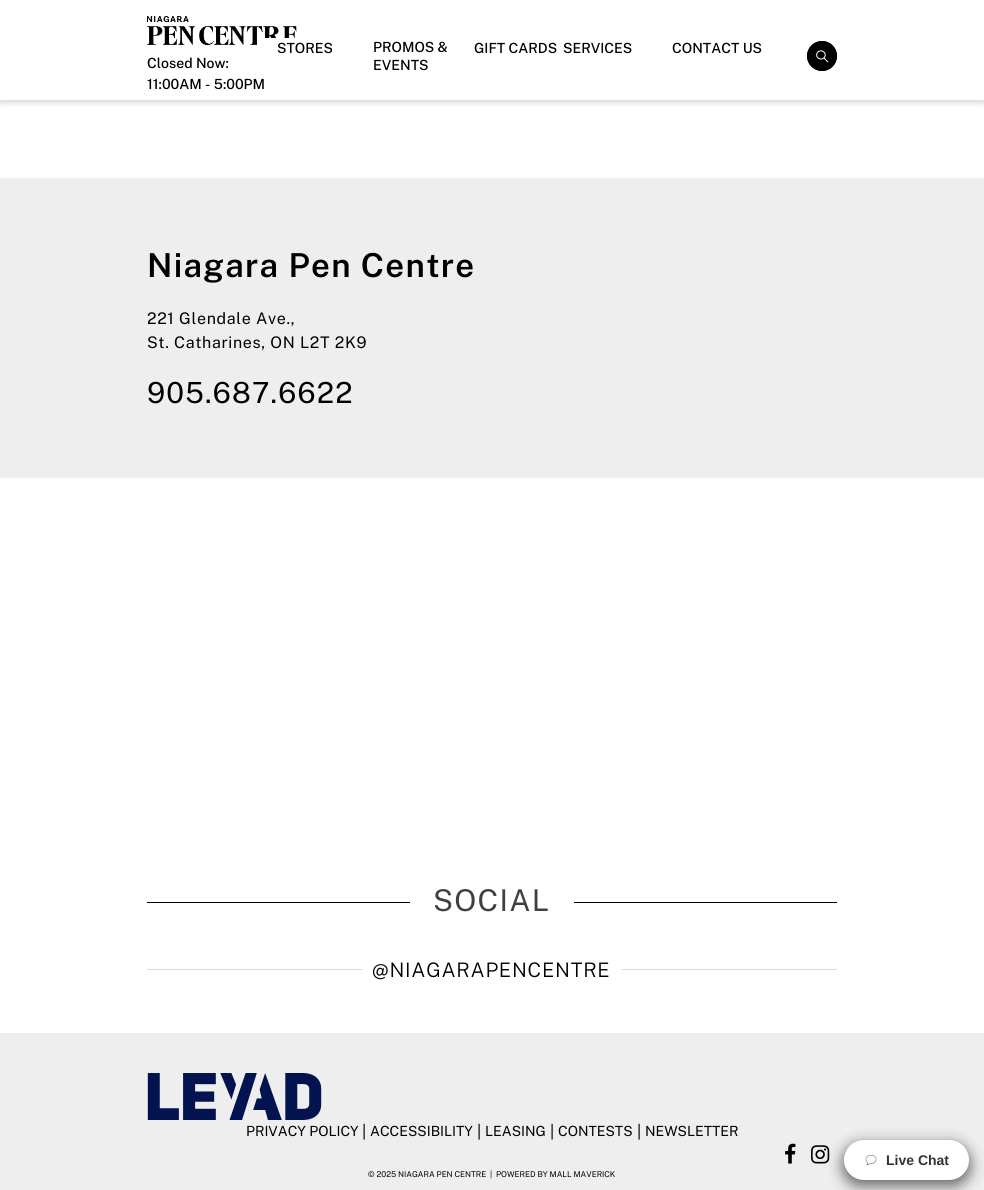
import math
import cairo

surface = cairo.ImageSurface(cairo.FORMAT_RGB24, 984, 1190)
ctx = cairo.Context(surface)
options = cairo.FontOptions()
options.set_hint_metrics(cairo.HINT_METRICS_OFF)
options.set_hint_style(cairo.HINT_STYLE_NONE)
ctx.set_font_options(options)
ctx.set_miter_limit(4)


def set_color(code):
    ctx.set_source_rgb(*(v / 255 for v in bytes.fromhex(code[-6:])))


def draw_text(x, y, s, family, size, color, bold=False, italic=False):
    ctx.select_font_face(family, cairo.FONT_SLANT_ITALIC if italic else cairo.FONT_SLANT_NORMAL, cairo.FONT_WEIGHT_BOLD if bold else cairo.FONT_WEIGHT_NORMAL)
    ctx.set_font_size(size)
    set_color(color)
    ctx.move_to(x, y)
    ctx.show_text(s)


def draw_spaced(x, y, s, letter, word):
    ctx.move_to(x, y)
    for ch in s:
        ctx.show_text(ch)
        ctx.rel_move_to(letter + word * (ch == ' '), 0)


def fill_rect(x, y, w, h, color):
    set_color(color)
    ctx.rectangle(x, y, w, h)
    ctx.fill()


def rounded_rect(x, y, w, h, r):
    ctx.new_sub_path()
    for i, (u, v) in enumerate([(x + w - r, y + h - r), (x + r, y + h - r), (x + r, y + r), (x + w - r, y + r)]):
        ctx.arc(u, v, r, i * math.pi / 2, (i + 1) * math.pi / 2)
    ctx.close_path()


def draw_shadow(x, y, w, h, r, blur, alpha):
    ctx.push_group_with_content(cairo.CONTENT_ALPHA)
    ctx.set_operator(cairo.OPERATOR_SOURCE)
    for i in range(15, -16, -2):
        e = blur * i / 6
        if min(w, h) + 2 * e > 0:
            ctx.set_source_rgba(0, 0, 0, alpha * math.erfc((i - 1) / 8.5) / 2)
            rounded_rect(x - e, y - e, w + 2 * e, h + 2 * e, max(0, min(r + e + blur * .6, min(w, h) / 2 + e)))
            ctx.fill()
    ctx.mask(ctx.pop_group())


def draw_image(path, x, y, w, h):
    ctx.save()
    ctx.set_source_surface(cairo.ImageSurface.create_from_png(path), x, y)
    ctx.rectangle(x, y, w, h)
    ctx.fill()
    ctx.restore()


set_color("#ffffff")
ctx.paint()
set_color("#000000")
draw_shadow(0, 3, 984, 100, 0, 3, 0.16)
fill_rect(0, 0, 984, 100, "#ffffff")
draw_image("assets/img1.png", 147, 16, 150, 30)
draw_text(147, 68, "Closed Now:", "Public Sans Medium", 14, "#000000")
draw_text(147, 89, "11:00AM - 5:00PM", "Public Sans Medium", 14, "#000000")
fill_rect(257, 38, 40, 8, "#ffffff")
draw_text(277, 53, "STORES", "Public Sans Medium", 14, "#000000")
draw_text(373, 52, "PROMOS &", "Public Sans Medium", 14, "#000000")
draw_text(373, 70, "EVENTS", "Public Sans Medium", 14, "#000000")
draw_text(474, 53, "GIFT CARDS", "Public Sans Medium", 14, "#000000")
draw_text(563, 53, "SERVICES", "Public Sans Medium", 14, "#000000")
draw_text(672, 53, "CONTACT US", "Public Sans Medium", 14, "#000000")
draw_image("assets/img2.png", 807, 41, 30, 30)
fill_rect(0, 178, 984, 300, "#eeeeee")
ctx.select_font_face("Public Sans SemiBold")
ctx.set_font_size(33)
set_color("#000000")
draw_spaced(147, 277, "Niagara Pen Centre", 1.3, 0)
ctx.select_font_face("Public Sans")
ctx.set_font_size(16)
draw_spaced(147, 324, "221 Glendale Ave.,", 0.65, 0)
draw_spaced(147, 348, "St. Catharines, ON L2T 2K9", 0.65, 0)
ctx.set_font_size(29)
draw_spaced(147, 403, "905.687.6622", 1.2, 0)
fill_rect(147, 902, 263, 1, "#000000")
ctx.set_font_size(30)
set_color("#404040")
draw_spaced(433, 911, "SOCIAL", 1.25, 0)
fill_rect(574, 902, 263, 1, "#000000")
fill_rect(147, 969, 215, 1, "#dbdbdb")
ctx.select_font_face("Public Sans Light")
ctx.set_font_size(20)
set_color("#000000")
draw_spaced(372, 977, "@NIAGARAPENCENTRE", 0.75, 0)
fill_rect(622, 969, 215, 1, "#dbdbdb")
fill_rect(0, 1033, 984, 157, "#eeeeee")
draw_image("assets/img3.png", 147, 1073, 175, 47)
draw_text(246, 1136, "PRIVACY POLICY", "Public Sans", 14, "#000000")
draw_text(362, 1137, "|", "Public Sans", 16, "#000000")
draw_text(370, 1136, "ACCESSIBILITY", "Public Sans", 14, "#000000")
draw_text(477, 1137, "|", "Public Sans", 16, "#000000")
draw_text(485, 1136, "LEASING", "Public Sans", 14, "#000000")
draw_text(550, 1137, "|", "Public Sans", 16, "#000000")
draw_text(558, 1136, "CONTESTS", "Public Sans", 14, "#000000")
draw_text(637, 1137, "|", "Public Sans", 16, "#000000")
draw_text(645, 1136, "NEWSLETTER", "Public Sans", 14, "#000000")
draw_image("assets/img4.png", 785, 1143, 11, 21)
draw_image("assets/img5.png", 811, 1145, 19, 19)
draw_text(368, 1177, "© 2025 NIAGARA PEN CENTRE", "Public Sans", 8, "#000000")
draw_text(490, 1177, "|", "Public Sans", 8, "#000000")
draw_text(496, 1177, "POWERED BY MALL MAVERICK", "Public Sans", 8, "#000000")
set_color("#000000")
draw_shadow(844, 1145, 125, 40, 20, 7.5, 0.35)
draw_shadow(844, 1145, 125, 40, 20, 7.5, 0.35)
set_color("#ffffff")
rounded_rect(844, 1140, 125, 40, 20)
ctx.fill()
draw_image("assets/img6.png", 865, 1154, 12, 12)
draw_text(886, 1165, "Live Chat", "Liberation Sans", 14, "#333333", bold=True)
surface.write_to_png("output.png")
